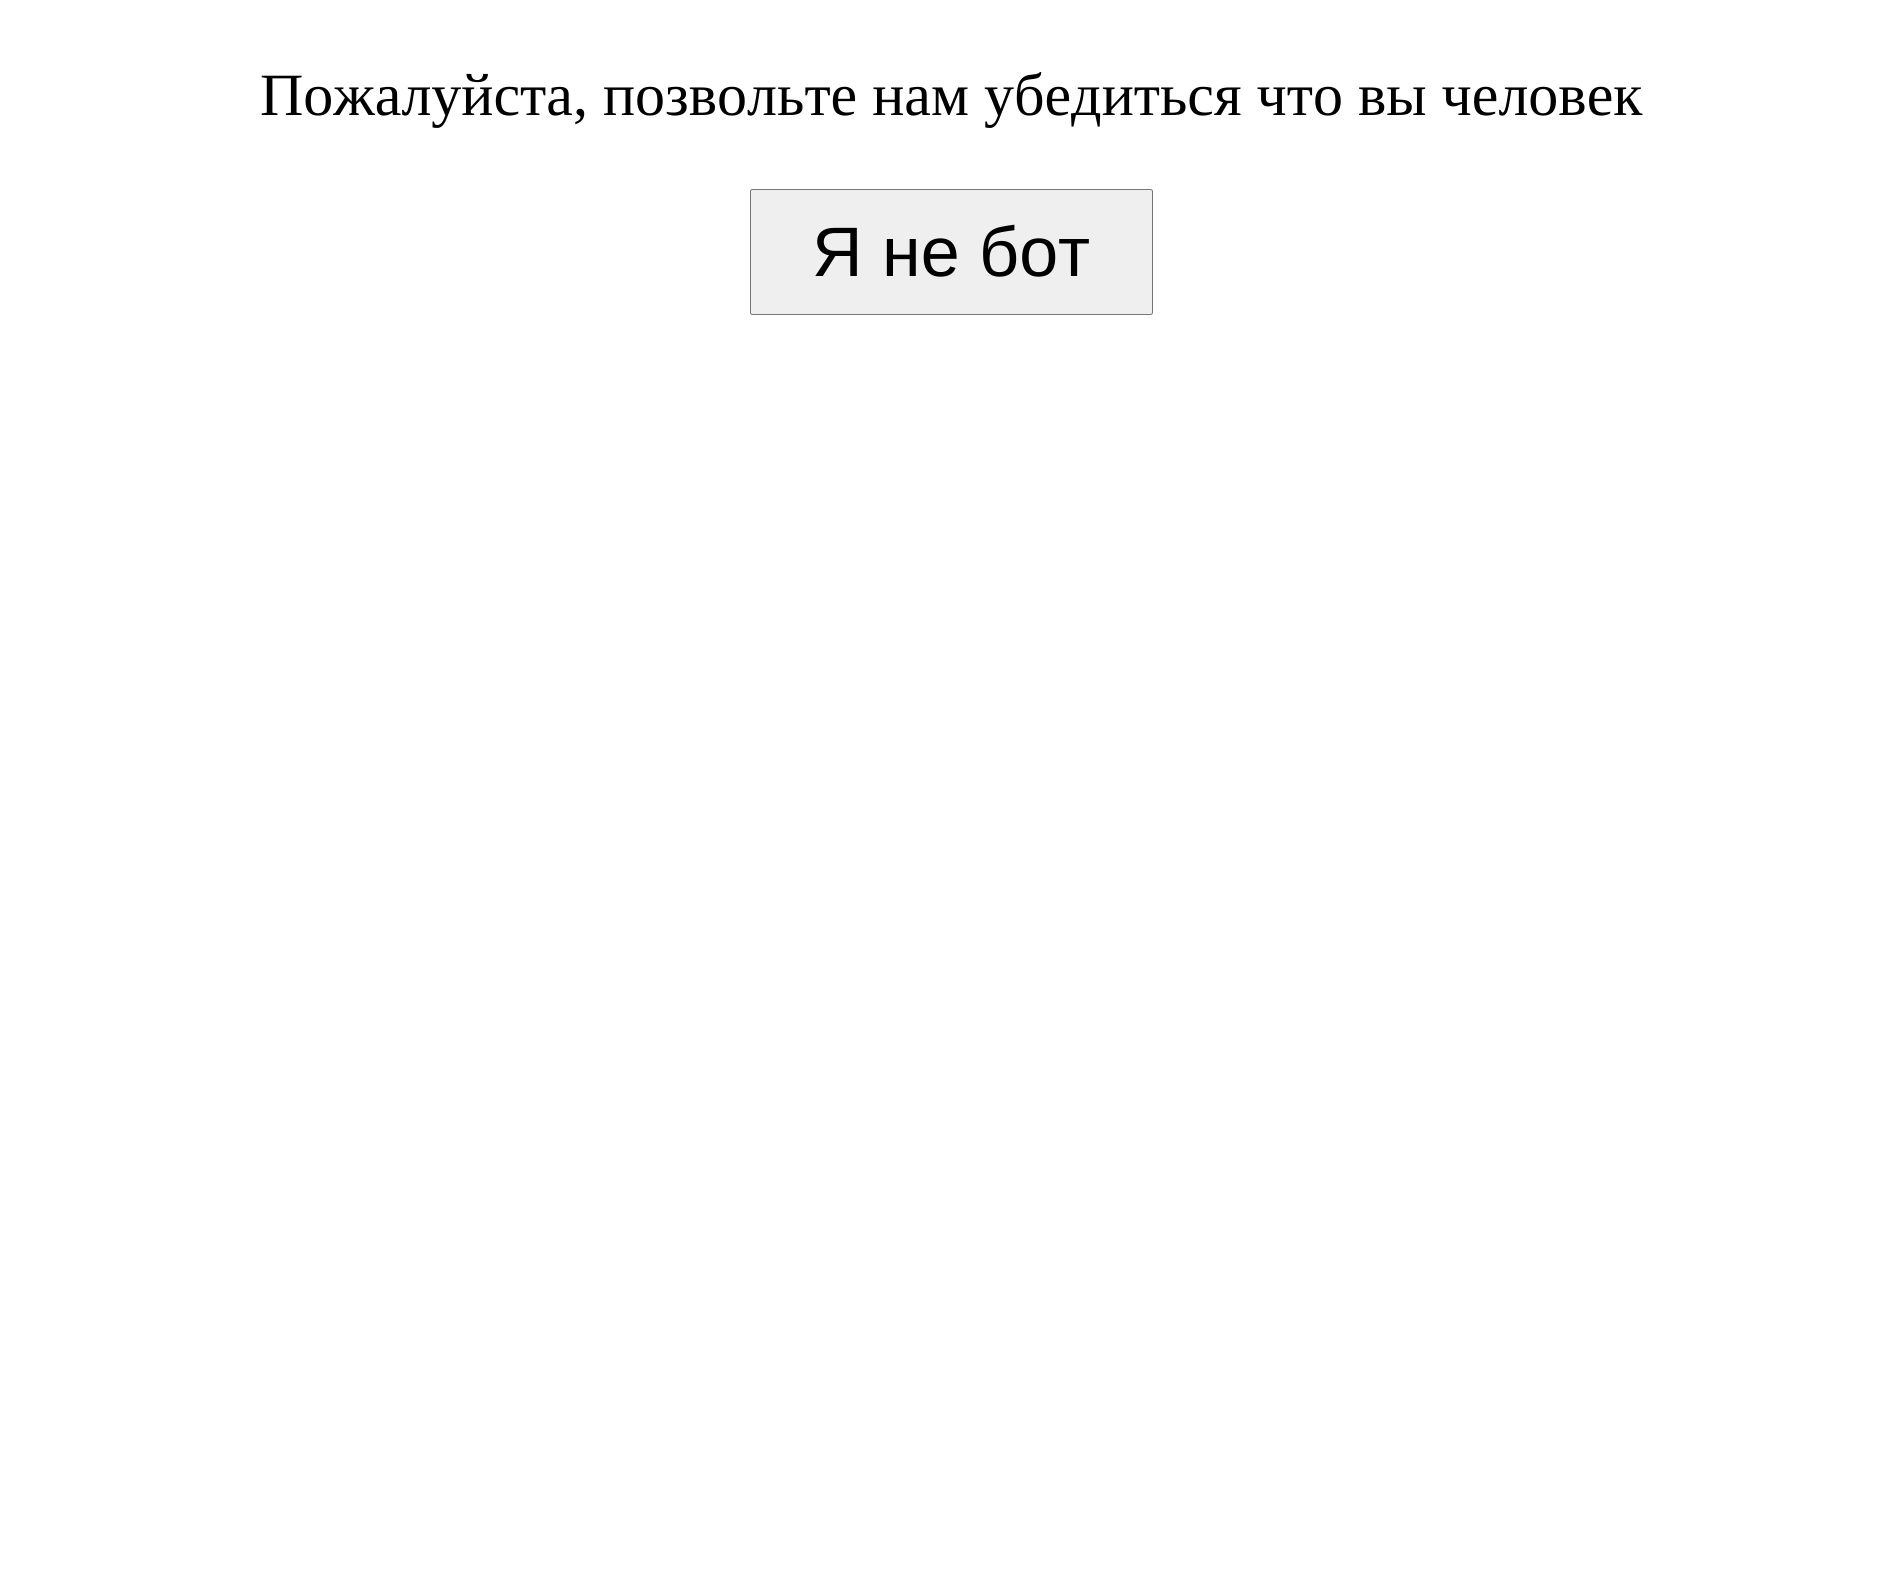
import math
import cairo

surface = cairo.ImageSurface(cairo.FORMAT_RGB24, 1902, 1572)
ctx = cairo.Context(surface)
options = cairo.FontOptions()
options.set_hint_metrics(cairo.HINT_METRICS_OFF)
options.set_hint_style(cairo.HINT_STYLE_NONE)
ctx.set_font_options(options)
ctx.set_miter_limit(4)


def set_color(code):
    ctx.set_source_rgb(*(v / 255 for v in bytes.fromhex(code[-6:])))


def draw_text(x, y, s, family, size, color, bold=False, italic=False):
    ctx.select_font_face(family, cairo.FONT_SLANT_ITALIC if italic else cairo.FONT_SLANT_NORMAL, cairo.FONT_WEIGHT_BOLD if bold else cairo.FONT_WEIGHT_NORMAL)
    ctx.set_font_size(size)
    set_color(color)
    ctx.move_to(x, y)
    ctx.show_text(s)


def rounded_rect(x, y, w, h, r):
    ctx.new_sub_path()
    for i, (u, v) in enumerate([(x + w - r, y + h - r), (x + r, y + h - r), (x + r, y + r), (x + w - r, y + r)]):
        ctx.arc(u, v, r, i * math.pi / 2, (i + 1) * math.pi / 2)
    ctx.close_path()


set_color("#ffffff")
ctx.paint()
draw_text(260, 115, "Пожалуйста, позвольте нам убедиться что вы человек", "Liberation Serif", 60, "#000000")
set_color("#efefef")
rounded_rect(750.5, 189.5, 402, 125, 2)
ctx.fill_preserve()
set_color("#767676")
ctx.set_line_width(1)
ctx.stroke()
draw_text(812, 276, "Я не бот", "Liberation Sans", 70, "#000000")
surface.write_to_png("output.png")
